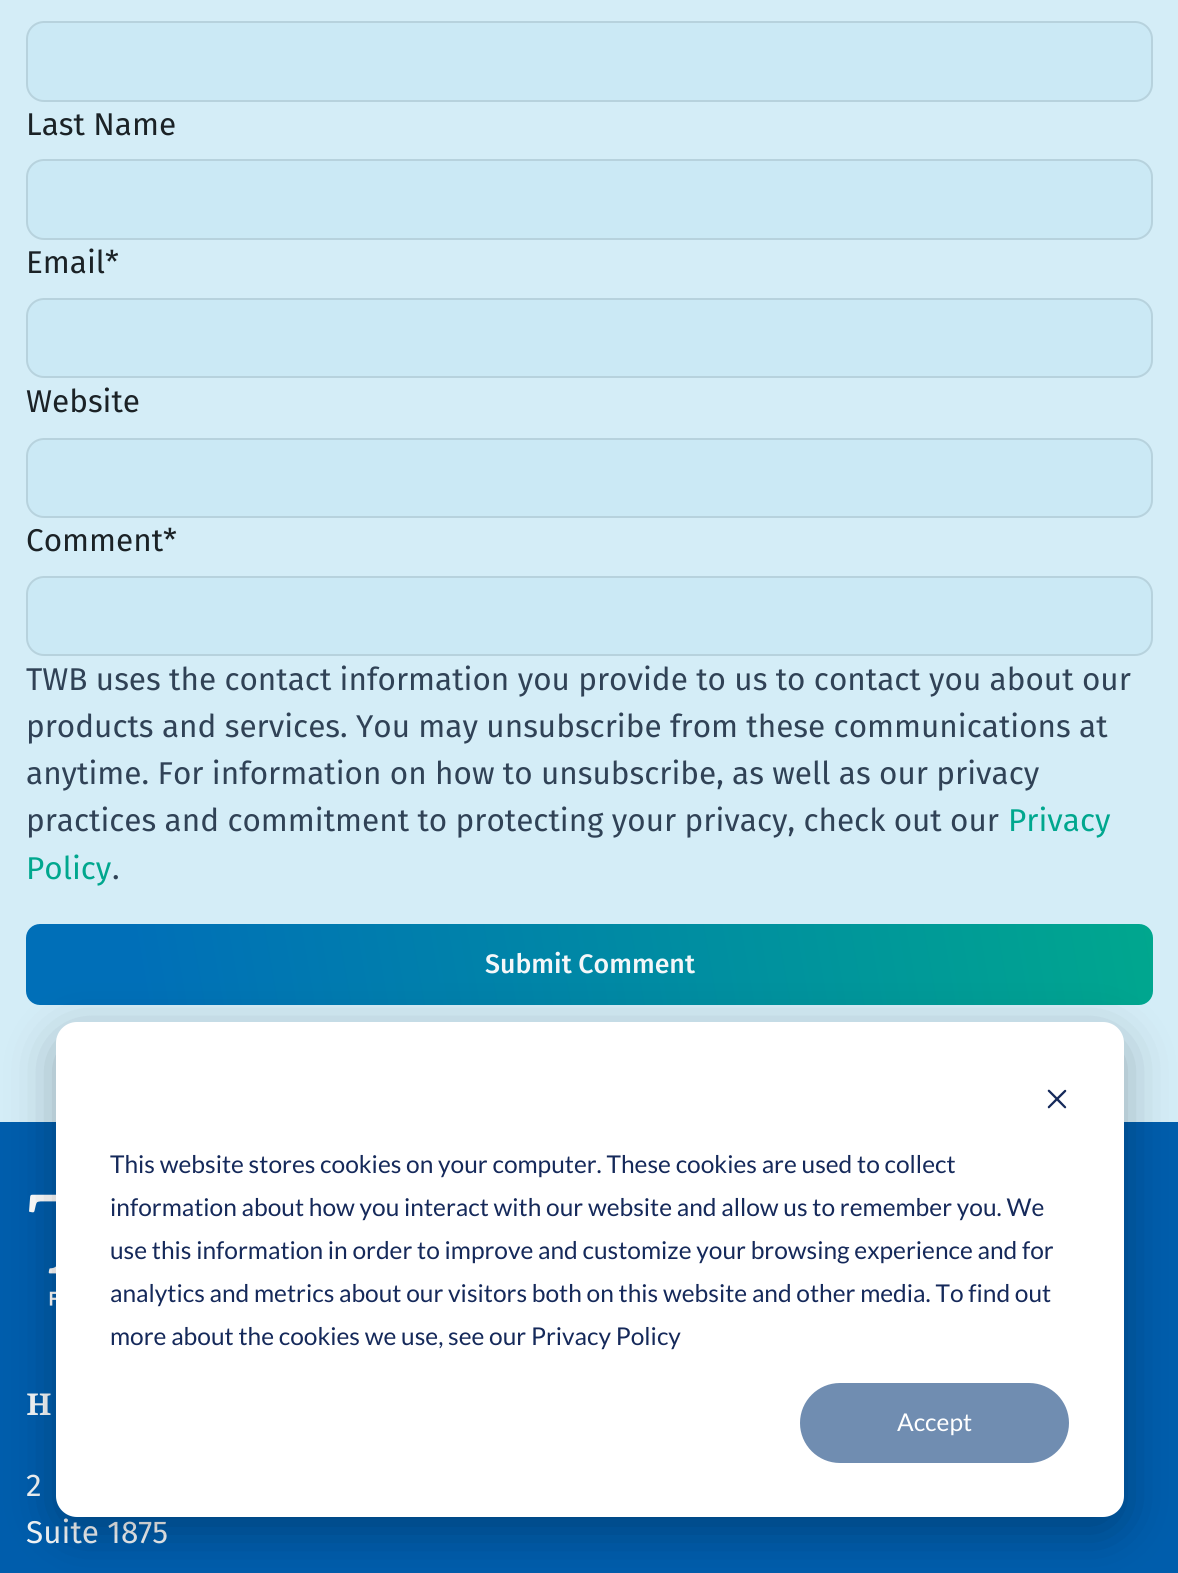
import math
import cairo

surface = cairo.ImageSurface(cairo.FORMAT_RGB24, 1178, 1573)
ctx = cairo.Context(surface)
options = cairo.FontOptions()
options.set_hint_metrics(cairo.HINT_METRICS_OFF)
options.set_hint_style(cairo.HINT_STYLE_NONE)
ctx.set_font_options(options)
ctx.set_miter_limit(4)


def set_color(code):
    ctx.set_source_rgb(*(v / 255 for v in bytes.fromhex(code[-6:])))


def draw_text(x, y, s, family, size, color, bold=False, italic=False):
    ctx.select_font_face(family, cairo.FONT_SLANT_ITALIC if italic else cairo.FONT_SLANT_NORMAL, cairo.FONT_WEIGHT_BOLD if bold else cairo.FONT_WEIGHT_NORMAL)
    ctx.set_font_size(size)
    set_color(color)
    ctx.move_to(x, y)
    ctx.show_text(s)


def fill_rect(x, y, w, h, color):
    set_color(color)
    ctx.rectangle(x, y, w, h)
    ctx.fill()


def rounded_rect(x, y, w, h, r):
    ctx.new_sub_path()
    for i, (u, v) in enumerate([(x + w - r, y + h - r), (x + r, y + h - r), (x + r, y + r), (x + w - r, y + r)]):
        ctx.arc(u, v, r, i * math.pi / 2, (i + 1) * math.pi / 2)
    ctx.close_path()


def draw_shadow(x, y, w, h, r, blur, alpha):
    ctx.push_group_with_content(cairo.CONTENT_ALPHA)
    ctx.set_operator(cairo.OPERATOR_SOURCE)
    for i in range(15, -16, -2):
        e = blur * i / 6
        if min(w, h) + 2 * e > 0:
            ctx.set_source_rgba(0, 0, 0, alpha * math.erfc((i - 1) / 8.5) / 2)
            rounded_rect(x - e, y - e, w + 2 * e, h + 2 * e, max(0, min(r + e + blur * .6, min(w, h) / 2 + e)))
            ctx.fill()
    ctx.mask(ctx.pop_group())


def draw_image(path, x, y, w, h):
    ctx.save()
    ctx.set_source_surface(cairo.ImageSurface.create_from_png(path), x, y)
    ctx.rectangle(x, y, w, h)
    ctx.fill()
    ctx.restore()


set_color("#d4edf7")
ctx.paint()
set_color("#cbe9f5")
rounded_rect(26, 21, 1127, 81, 18)
ctx.fill()
rounded_rect(27, 22, 1125, 79, 17)
ctx.set_source_rgba(0, 0, 0, 0.1)
ctx.stroke()
draw_text(26, 135, "Last Name", "Fira Sans", 31.5, "#1b2226")
set_color("#cbe9f5")
rounded_rect(26, 159, 1127, 81, 18)
ctx.fill()
rounded_rect(27, 160, 1125, 79, 17)
ctx.set_source_rgba(0, 0, 0, 0.1)
ctx.stroke()
draw_text(26, 273, "Email*", "Fira Sans", 31.5, "#1b2226")
set_color("#cbe9f5")
rounded_rect(26, 298, 1127, 80, 18)
ctx.fill()
rounded_rect(27, 299, 1125, 78, 17)
ctx.set_source_rgba(0, 0, 0, 0.1)
ctx.stroke()
draw_text(26, 412, "Website", "Fira Sans", 31.5, "#1b2226")
set_color("#cbe9f5")
rounded_rect(26, 438, 1127, 80, 18)
ctx.fill()
rounded_rect(27, 439, 1125, 78, 17)
ctx.set_source_rgba(0, 0, 0, 0.1)
ctx.stroke()
draw_text(26, 551, "Comment*", "Fira Sans", 31.5, "#1b2226")
set_color("#cbe9f5")
rounded_rect(26, 576, 1127, 80, 18)
ctx.fill()
rounded_rect(27, 577, 1125, 78, 17)
ctx.set_source_rgba(0, 0, 0, 0.1)
ctx.stroke()
draw_text(26, 690, "TWB uses the contact information you provide to us to contact you about our", "Fira Sans", 31.5, "#304256")
draw_text(26, 737, "products and services. You may unsubscribe from these communications at", "Fira Sans", 31.5, "#304256")
draw_text(26, 784, "anytime. For information on how to unsubscribe, as well as our privacy", "Fira Sans", 31.5, "#304256")
draw_text(26, 831, "practices and commitment to protecting your privacy, check out our", "Fira Sans", 31.5, "#304256")
draw_text(1008, 831, "Privacy", "Fira Sans", 31.5, "#00a78e")
draw_text(26, 879, "Policy", "Fira Sans", 31.5, "#00a78e")
draw_text(112, 879, ".", "Fira Sans", 31.5, "#304256")
gradient = cairo.LinearGradient(36, 1062, 1143, 867)
gradient.add_color_stop_rgba(0.1, 0, 0.435, 0.722, 1)
gradient.add_color_stop_rgba(1, 0, 0.655, 0.557, 1)
ctx.set_source(gradient)
rounded_rect(26, 924, 1127, 81, 14)
ctx.fill()
draw_text(485, 973, "Submit Comment", "Fira Sans Medium", 26.75, "#f4f7f9")
fill_rect(0, 1122, 1178, 451, "#005dac")
draw_image("assets/img1.png", 29, 1194, 27, 112)
draw_text(26, 1415, "H", "Manuale", 35, "#f4f7f9", bold=True)
draw_text(26, 1496, "2", "Fira Sans", 31.5, "#f4f7f9")
draw_text(26, 1543, "Suite 1875", "Fira Sans", 31.5, "#f4f7f9")
set_color("#000000")
draw_shadow(56, 1036, 1068, 495, 21, 24.5, 0.28)
set_color("#ffffff")
rounded_rect(56, 1022, 1068, 495, 21)
ctx.fill()
draw_image("assets/img2.png", 1047, 1089, 20, 20)
draw_text(110, 1173, "This website stores cookies on your computer. These cookies are used to collect", "Lato", 24.5, "#15295a")
draw_text(110, 1216, "information about how you interact with our website and allow us to remember you. We", "Lato", 24.5, "#15295a")
draw_text(110, 1259, "use this information in order to improve and customize your browsing experience and for", "Lato", 24.5, "#15295a")
draw_text(110, 1302, "analytics and metrics about our visitors both on this website and other media. To find out", "Lato", 24.5, "#15295a")
draw_text(110, 1345, "more about the cookies we use, see our Privacy Policy", "Lato", 24.5, "#15295a")
set_color("#708db1")
rounded_rect(801, 1384, 267, 78, 39)
ctx.fill_preserve()
ctx.stroke()
draw_text(897, 1431, "Accept", "Lato", 24.5, "#ffffff")
surface.write_to_png("output.png")
